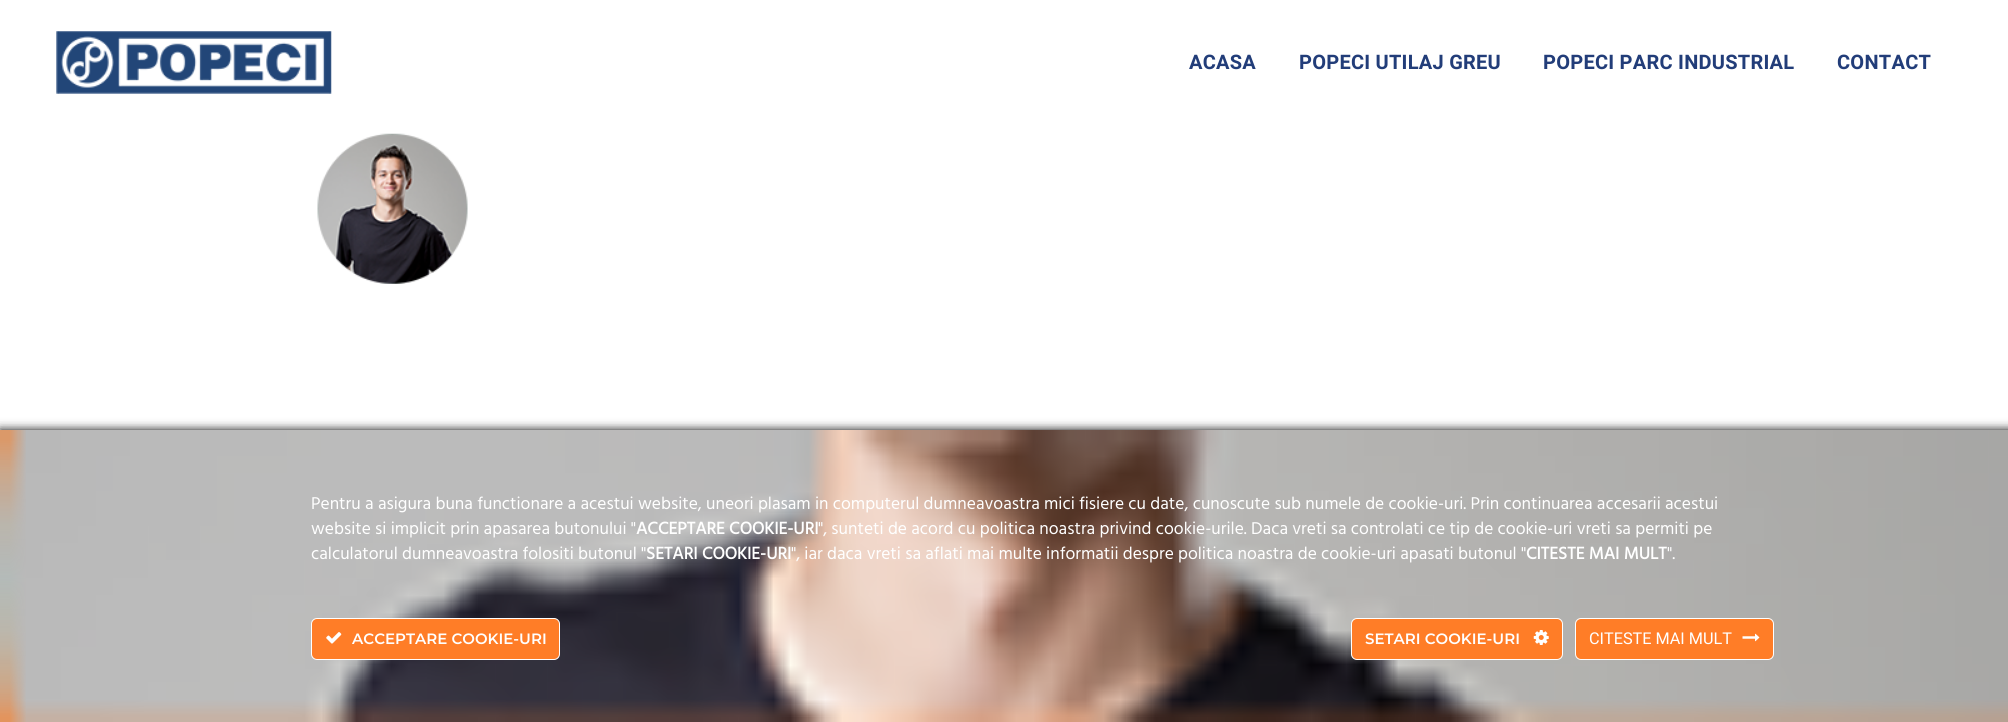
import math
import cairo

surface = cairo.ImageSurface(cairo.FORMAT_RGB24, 2008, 722)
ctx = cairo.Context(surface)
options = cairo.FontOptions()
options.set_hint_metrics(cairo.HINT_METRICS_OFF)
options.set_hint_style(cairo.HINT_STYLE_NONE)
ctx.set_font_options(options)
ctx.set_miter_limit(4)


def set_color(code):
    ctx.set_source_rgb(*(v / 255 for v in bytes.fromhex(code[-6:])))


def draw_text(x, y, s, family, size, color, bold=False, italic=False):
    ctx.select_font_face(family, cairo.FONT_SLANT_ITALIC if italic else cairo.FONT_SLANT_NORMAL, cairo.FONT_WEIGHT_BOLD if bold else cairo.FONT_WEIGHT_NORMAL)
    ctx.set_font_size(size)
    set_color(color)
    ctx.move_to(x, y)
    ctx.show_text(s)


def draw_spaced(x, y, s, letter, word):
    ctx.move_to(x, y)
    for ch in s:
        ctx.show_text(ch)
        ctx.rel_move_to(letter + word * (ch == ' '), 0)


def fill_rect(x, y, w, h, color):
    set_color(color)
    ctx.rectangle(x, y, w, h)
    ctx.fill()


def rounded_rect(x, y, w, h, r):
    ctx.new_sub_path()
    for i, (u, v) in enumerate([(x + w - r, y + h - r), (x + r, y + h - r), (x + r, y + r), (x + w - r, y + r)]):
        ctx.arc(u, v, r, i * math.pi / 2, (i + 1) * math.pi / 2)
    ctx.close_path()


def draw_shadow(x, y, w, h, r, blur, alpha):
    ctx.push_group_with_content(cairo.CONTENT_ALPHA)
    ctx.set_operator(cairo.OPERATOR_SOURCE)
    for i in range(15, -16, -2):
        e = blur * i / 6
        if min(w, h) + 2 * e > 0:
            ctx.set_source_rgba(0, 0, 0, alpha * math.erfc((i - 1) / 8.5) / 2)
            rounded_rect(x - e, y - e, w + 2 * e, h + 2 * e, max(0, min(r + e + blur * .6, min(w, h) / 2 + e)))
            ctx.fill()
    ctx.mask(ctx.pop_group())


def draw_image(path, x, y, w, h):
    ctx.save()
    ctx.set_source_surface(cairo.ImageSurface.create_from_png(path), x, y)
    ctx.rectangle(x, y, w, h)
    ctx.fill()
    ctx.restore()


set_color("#ffffff")
ctx.paint()
draw_image("assets/img1.png", 56, 31, 276, 63)
ctx.select_font_face("Heebo", cairo.FONT_SLANT_NORMAL, cairo.FONT_WEIGHT_BOLD)
ctx.set_font_size(20)
set_color("#223d79")
draw_spaced(1189, 69, "ACASA", 0.25, 0)
draw_spaced(1299, 69, "POPECI UTILAJ GREU", 0.25, 0)
draw_spaced(1543, 69, "POPECI PARC INDUSTRIAL", 0.25, 0)
draw_spaced(1837, 69, "CONTACT", 0.25, 0)
draw_image("assets/img2.png", 317, 133, 151, 151)
set_color("#000000")
draw_shadow(0, 430, 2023, 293, 0, 5, 1)
fill_rect(0, 430, 2008, 292, "#ff7d27")
draw_image("assets/img3.png", 0, 430, 2008, 292)
draw_text(311, 509, "Pentru a asigura buna functionare a acestui website, uneori plasam in computerul dumneavoastra mici fisiere cu date, cunoscute sub numele de cookie-uri. Prin continuarea accesarii acestui", "Hind", 17.5, "#ffffff")
draw_text(311, 534, "website si implicit prin apasarea butonului \"", "Hind", 17.5, "#ffffff")
draw_text(636, 534, "ACCEPTARE COOKIE-URI", "Hind", 17.5, "#ffffff", bold=True)
draw_text(818, 534, "\", sunteti de acord cu politica noastra privind cookie-urile. Daca vreti sa controlati ce tip de cookie-uri vreti sa permiti pe", "Hind", 17.5, "#ffffff")
draw_text(311, 559, "calculatorul dumneavoastra folositi butonul \"", "Hind", 17.5, "#ffffff")
draw_text(646, 559, "SETARI COOKIE-URI", "Hind", 17.5, "#ffffff", bold=True)
draw_text(791, 559, "\", iar daca vreti sa aflati mai multe informatii despre politica noastra de cookie-uri apasati butonul \"", "Hind", 17.5, "#ffffff")
draw_text(1526, 559, "CITESTE MAI MULT", "Hind", 17.5, "#ffffff", bold=True)
draw_text(1667, 559, "\".", "Hind", 17.5, "#ffffff")
set_color("#ff7d27")
rounded_rect(311.5, 618.5, 248, 41, 5.5)
ctx.fill_preserve()
set_color("#ffffff")
ctx.set_line_width(1)
ctx.stroke()
draw_image("assets/img4.png", 326, 632, 16, 12)
draw_text(352, 644, "ACCEPTARE COOKIE-URI", "Montserrat SemiBold", 15, "#ffffff")
set_color("#ff7d27")
rounded_rect(1351.5, 618.5, 211, 41, 5.5)
ctx.fill_preserve()
set_color("#ffffff")
ctx.stroke()
draw_text(1365, 644, "SETARI COOKIE-URI", "Montserrat SemiBold", 15, "#ffffff")
draw_image("assets/img5.png", 1533, 630, 16, 15)
set_color("#ff7d27")
rounded_rect(1575.5, 618.5, 198, 41, 5.5)
ctx.fill_preserve()
set_color("#ffffff")
ctx.stroke()
draw_text(1589, 644, "CITESTE MAI MULT", "Heebo", 16.25, "#ffffff")
draw_image("assets/img6.png", 1742, 633, 18, 9)
surface.write_to_png("output.png")
